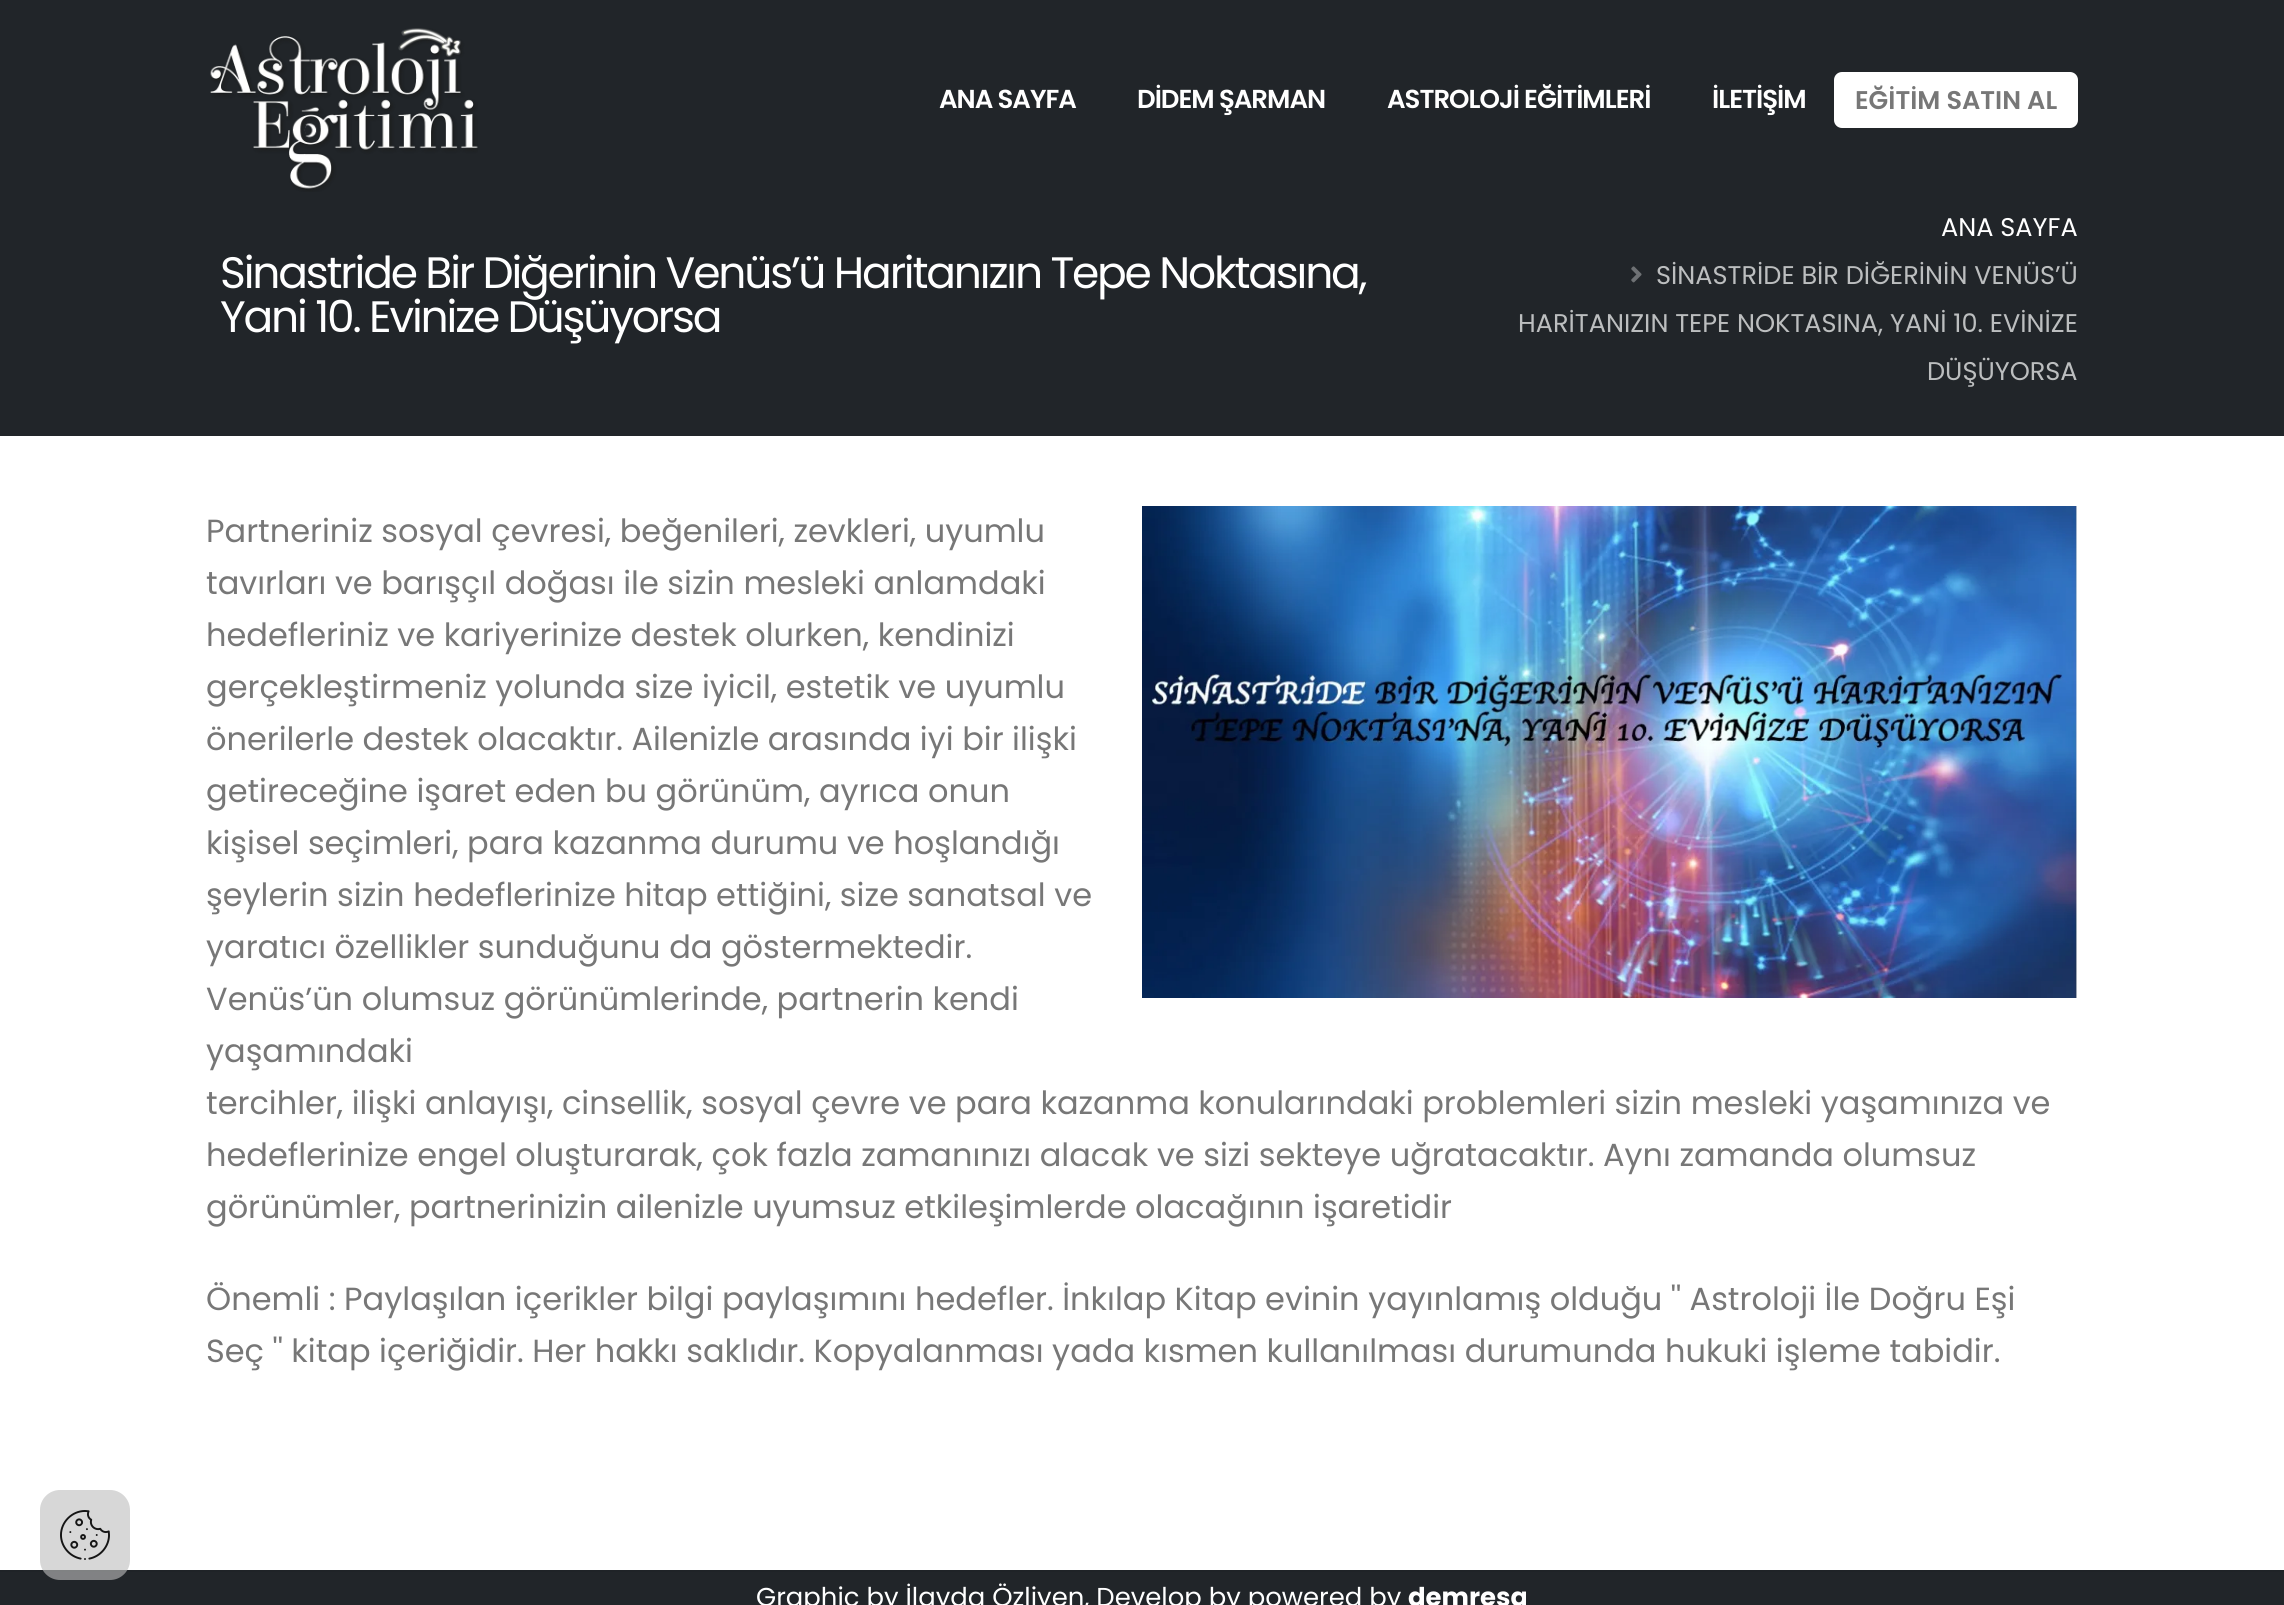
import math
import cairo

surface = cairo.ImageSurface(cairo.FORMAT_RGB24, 2284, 1605)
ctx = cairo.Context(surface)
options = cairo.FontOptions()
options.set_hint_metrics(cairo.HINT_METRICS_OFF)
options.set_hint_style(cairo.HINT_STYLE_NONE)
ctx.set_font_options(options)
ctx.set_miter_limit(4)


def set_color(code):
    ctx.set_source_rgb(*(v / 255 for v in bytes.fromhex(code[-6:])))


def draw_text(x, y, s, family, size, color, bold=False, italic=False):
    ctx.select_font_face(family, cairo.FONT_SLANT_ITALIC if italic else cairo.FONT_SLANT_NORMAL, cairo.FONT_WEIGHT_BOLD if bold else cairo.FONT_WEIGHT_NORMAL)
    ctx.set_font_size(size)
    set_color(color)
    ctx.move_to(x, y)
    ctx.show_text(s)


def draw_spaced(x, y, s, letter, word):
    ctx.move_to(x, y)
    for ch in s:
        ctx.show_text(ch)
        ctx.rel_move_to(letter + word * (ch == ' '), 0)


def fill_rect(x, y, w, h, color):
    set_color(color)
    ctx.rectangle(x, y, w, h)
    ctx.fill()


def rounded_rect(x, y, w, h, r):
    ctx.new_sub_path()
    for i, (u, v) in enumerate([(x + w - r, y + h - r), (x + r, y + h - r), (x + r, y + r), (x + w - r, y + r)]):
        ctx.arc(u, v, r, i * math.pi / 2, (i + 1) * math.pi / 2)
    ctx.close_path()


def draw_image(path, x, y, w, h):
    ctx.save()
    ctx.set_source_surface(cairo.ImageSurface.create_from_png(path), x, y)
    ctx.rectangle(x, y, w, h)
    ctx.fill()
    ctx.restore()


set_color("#ffffff")
ctx.paint()
fill_rect(0, 1572, 2284, 33, "#212529")
fill_rect(0, 1570, 2284, 2, "#1f2327")
ctx.set_source_rgba(0.745, 0.745, 0.745, 0.61)
rounded_rect(40, 1490, 90, 90, 20)
ctx.fill()
draw_image("assets/img1.png", 60, 1510, 50, 50)
fill_rect(0, 0, 2284, 436, "#212529")
draw_image("assets/img2.png", 210, 28, 268, 164)
ctx.select_font_face("Poppins SemiBold")
ctx.set_font_size(26)
set_color("#ffffff")
draw_spaced(939, 108, "ANA SAYFA", -1, 0)
draw_spaced(1137, 108, "DİDEM ŞARMAN", -1, 0)
draw_spaced(1387, 108, "ASTROLOJİ EĞİTİMLERİ", -1, 0)
draw_spaced(1712, 108, "İLETİŞİM", -1, 0)
rounded_rect(1834, 72, 244, 56, 8)
ctx.fill()
draw_text(1855, 109, "EĞİTİM SATIN AL", "Poppins SemiBold", 25.6, "#777777")
ctx.select_font_face("Poppins")
ctx.set_font_size(44)
set_color("#ffffff")
draw_spaced(220, 288, "Sinastride Bir Diğerinin Venüs’ü Haritanızın Tepe Noktasına,", -2.2, 0)
draw_spaced(220, 332, "Yani 10. Evinize Düşüyorsa", -2.2, 0)
draw_text(1941, 236, "ANA SAYFA", "Poppins", 25.6, "#ffffff")
draw_image("assets/img3.png", 1631, 266, 11, 17)
draw_text(1656, 284, "SİNASTRİDE BİR DİĞERİNİN VENÜS’Ü", "Poppins", 25.6, "#bcbebf")
draw_text(1518, 332, "HARİTANIZIN TEPE NOKTASINA, YANİ 10. EVİNİZE", "Poppins", 25.6, "#bcbebf")
draw_text(1927, 380, "DÜŞÜYORSA", "Poppins", 25.6, "#bcbebf")
draw_image("assets/img4.png", 1142, 506, 935, 492)
draw_text(206, 542, "Partneriniz sosyal çevresi, beğenileri, zevkleri, uyumlu", "Poppins", 32, "#777777")
draw_text(206, 594, "tavırları ve barışçıl doğası ile sizin mesleki anlamdaki", "Poppins", 32, "#777777")
draw_text(206, 646, "hedefleriniz ve kariyerinize destek olurken, kendinizi", "Poppins", 32, "#777777")
draw_text(206, 698, "gerçekleştirmeniz yolunda size iyicil, estetik ve uyumlu", "Poppins", 32, "#777777")
draw_text(206, 750, "önerilerle destek olacaktır. Ailenizle arasında iyi bir ilişki", "Poppins", 32, "#777777")
draw_text(206, 802, "getireceğine işaret eden bu görünüm, ayrıca onun", "Poppins", 32, "#777777")
draw_text(206, 854, "kişisel seçimleri, para kazanma durumu ve hoşlandığı", "Poppins", 32, "#777777")
draw_text(206, 906, "şeylerin sizin hedeflerinize hitap ettiğini, size sanatsal ve", "Poppins", 32, "#777777")
draw_text(206, 958, "yaratıcı özellikler sunduğunu da göstermektedir.", "Poppins", 32, "#777777")
draw_text(206, 1010, "Venüs’ün olumsuz görünümlerinde, partnerin kendi", "Poppins", 32, "#777777")
draw_text(206, 1062, "yaşamındaki", "Poppins", 32, "#777777")
draw_text(206, 1114, "tercihler, ilişki anlayışı, cinsellik, sosyal çevre ve para kazanma konularındaki problemleri sizin mesleki yaşamınıza ve", "Poppins", 32, "#777777")
draw_text(206, 1166, "hedeflerinize engel oluşturarak, çok fazla zamanınızı alacak ve sizi sekteye uğratacaktır. Aynı zamanda olumsuz", "Poppins", 32, "#777777")
draw_text(206, 1218, "görünümler, partnerinizin ailenizle uyumsuz etkileşimlerde olacağının işaretidir", "Poppins", 32, "#777777")
draw_text(206, 1310, "Önemli : Paylaşılan içerikler bilgi paylaşımını hedefler. İnkılap Kitap evinin yayınlamış olduğu '' Astroloji İle Doğru Eşi", "Poppins", 32, "#777777")
draw_text(206, 1362, "Seç '' kitap içeriğidir. Her hakkı saklıdır. Kopyalanması yada kısmen kullanılması durumunda hukuki işleme tabidir.", "Poppins", 32, "#777777")
draw_text(756, 1606, "Graphic by İlayda Özliyen, Develop by powered by", "Poppins", 25.9, "#ffffff")
draw_text(1408, 1606, "demresa", "Poppins", 25.9, "#ffffff", bold=True)
surface.write_to_png("output.png")
